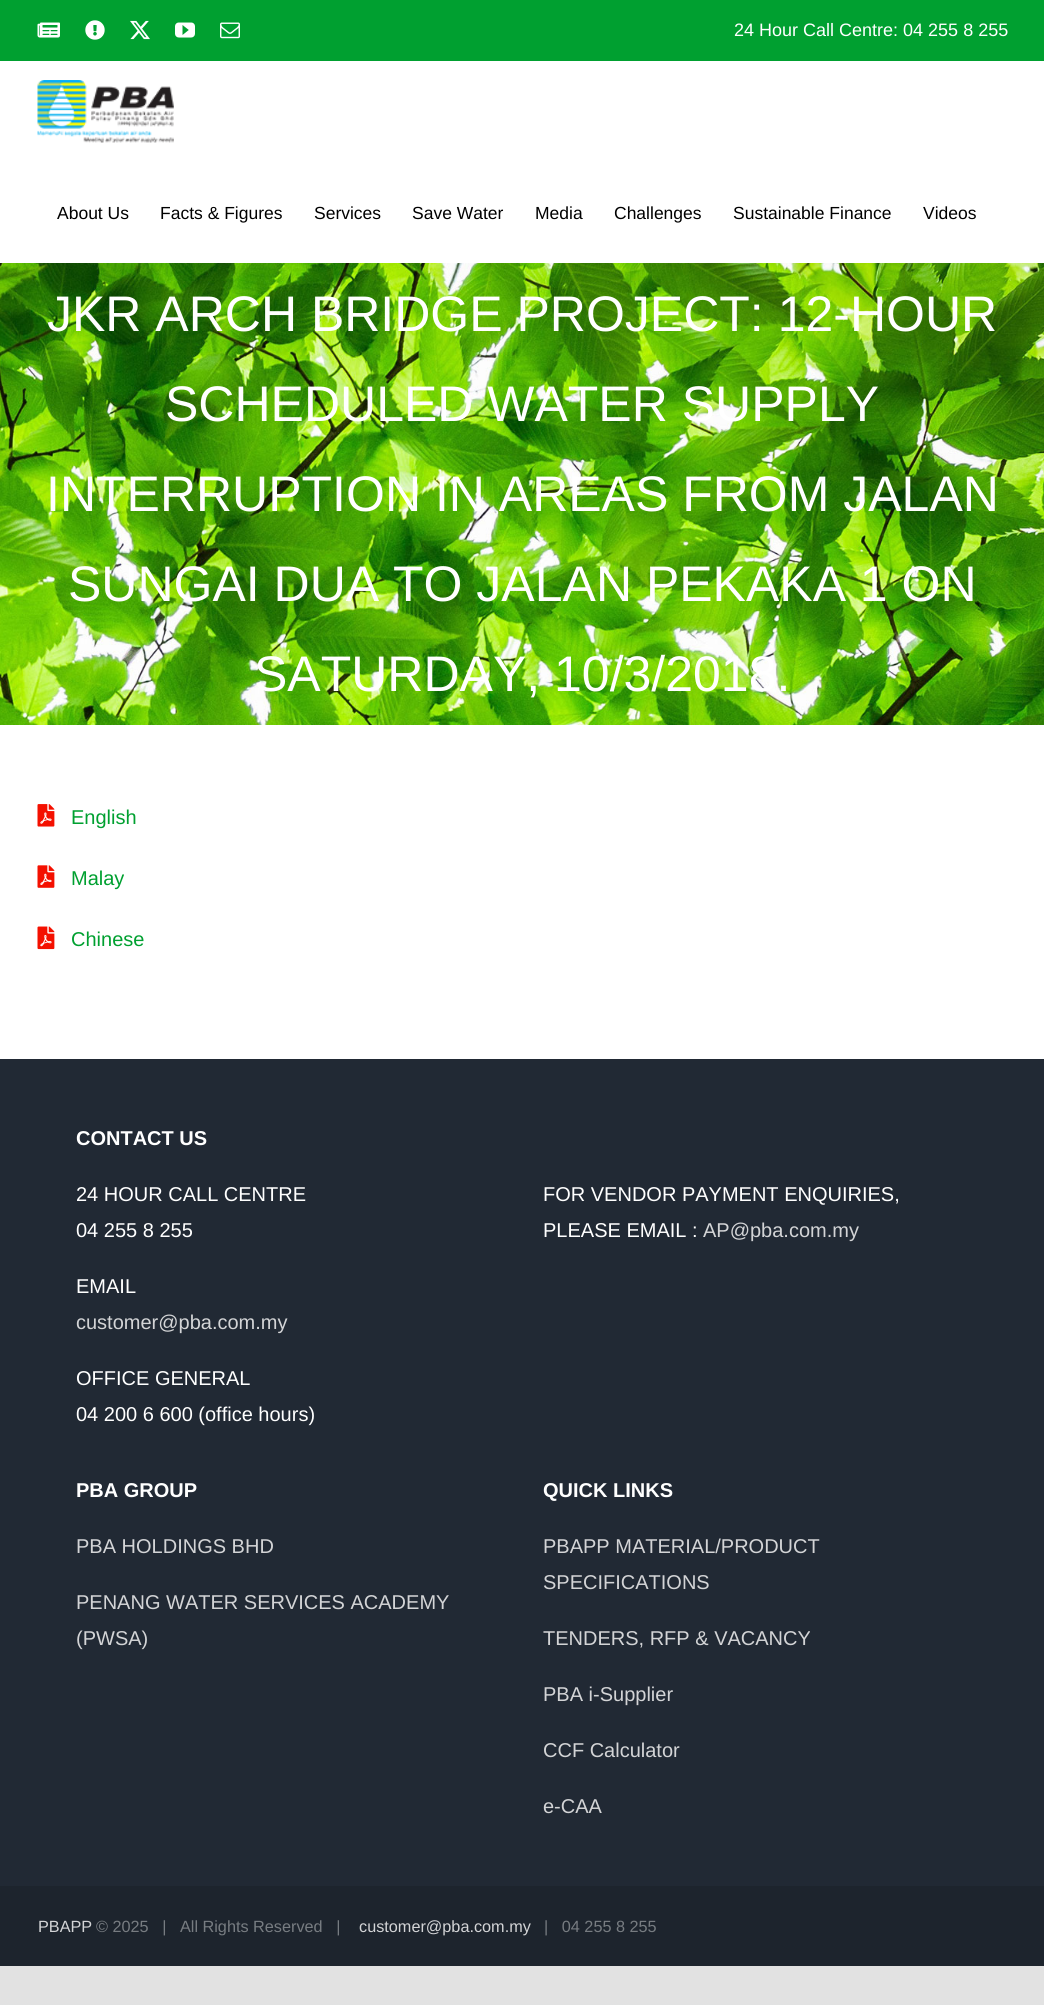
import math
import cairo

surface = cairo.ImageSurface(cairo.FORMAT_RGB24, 1044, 2005)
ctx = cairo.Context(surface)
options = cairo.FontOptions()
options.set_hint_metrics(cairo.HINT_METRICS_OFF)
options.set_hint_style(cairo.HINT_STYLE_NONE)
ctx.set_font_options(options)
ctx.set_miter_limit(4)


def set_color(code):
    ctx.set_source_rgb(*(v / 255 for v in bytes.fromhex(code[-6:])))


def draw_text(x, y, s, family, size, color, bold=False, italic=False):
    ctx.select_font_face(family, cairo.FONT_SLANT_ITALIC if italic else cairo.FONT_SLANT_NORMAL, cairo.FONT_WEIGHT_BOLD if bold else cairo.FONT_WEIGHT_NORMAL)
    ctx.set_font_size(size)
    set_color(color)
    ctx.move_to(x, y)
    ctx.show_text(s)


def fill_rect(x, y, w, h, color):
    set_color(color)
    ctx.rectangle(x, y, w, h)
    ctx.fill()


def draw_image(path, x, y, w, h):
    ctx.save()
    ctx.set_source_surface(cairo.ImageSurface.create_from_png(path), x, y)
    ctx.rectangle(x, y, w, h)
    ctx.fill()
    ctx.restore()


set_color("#e2e2e2")
ctx.paint()
fill_rect(0, 725, 1044, 334, "#ffffff")
fill_rect(0, 0, 1044, 61, "#00a030")
draw_image("assets/img1.png", 37, 22, 23, 16)
draw_image("assets/img2.png", 85, 20, 20, 20)
draw_image("assets/img3.png", 130, 20, 20, 20)
draw_image("assets/img4.png", 175, 22, 20, 16)
draw_image("assets/img5.png", 220, 22, 20, 17)
draw_text(734, 36, "24 Hour Call Centre: 04 255 8 255", "Liberation Sans", 18, "#ffffff")
fill_rect(0, 61, 1044, 202, "#ffffff")
draw_image("assets/img6.png", 37, 80, 137, 63)
draw_text(57, 219, "About Us", "Liberation Sans", 17.5, "#000000")
draw_text(160, 219, "Facts & Figures", "Liberation Sans", 17.5, "#000000")
draw_text(314, 219, "Services", "Liberation Sans", 17.5, "#000000")
draw_text(412, 219, "Save Water", "Liberation Sans", 17.5, "#000000")
draw_text(535, 219, "Media", "Liberation Sans", 17.5, "#000000")
draw_text(614, 219, "Challenges", "Liberation Sans", 17.5, "#000000")
draw_text(733, 219, "Sustainable Finance", "Liberation Sans", 17.5, "#000000")
draw_text(923, 219, "Videos", "Liberation Sans", 17.5, "#000000")
draw_image("assets/img7.png", 0, 263, 1044, 462)
draw_text(47, 331, "JKR ARCH BRIDGE PROJECT: 12-HOUR", "Liberation Sans", 50, "#ffffff")
draw_text(165, 421, "SCHEDULED WATER SUPPLY", "Liberation Sans", 50, "#ffffff")
draw_text(46, 511, "INTERRUPTION IN AREAS FROM JALAN", "Liberation Sans", 50, "#ffffff")
draw_text(68, 601, "SUNGAI DUA TO JALAN PEKAKA 1 ON", "Liberation Sans", 50, "#ffffff")
draw_text(254, 691, "SATURDAY, 10/3/2018.", "Liberation Sans", 50, "#ffffff")
draw_image("assets/img8.png", 37, 804, 18, 23)
draw_text(71, 824, "English", "Liberation Sans", 20, "#00a030")
draw_image("assets/img9.png", 37, 865, 18, 23)
draw_text(71, 885, "Malay", "Liberation Sans", 20, "#00a030")
draw_image("assets/img10.png", 37, 926, 18, 24)
draw_text(71, 946, "Chinese", "Liberation Sans", 20, "#00a030")
fill_rect(0, 1059, 1044, 827, "#212934")
draw_text(76, 1145, "CONTACT US", "Liberation Sans", 20, "#ffffff", bold=True)
draw_text(76, 1201, "24 HOUR CALL CENTRE", "Liberation Sans", 20, "#ffffff")
draw_text(76, 1237, "04 255 8 255", "Liberation Sans", 20, "#ffffff")
draw_text(76, 1293, "EMAIL", "Liberation Sans", 20, "#ffffff")
draw_text(76, 1329, "customer@pba.com.my", "Liberation Sans", 20, "#d3d4d6")
draw_text(76, 1385, "OFFICE GENERAL", "Liberation Sans", 20, "#ffffff")
draw_text(76, 1421, "04 200 6 600 (office hours)", "Liberation Sans", 20, "#ffffff")
draw_text(543, 1201, "FOR VENDOR PAYMENT ENQUIRIES,", "Liberation Sans", 20, "#ffffff")
draw_text(543, 1237, "PLEASE EMAIL :", "Liberation Sans", 20, "#ffffff")
draw_text(703, 1237, "AP@pba.com.my", "Liberation Sans", 20, "#d3d4d6")
draw_text(76, 1497, "PBA GROUP", "Liberation Sans", 20, "#ffffff", bold=True)
draw_text(76, 1553, "PBA HOLDINGS BHD", "Liberation Sans", 20, "#d3d4d6")
draw_text(76, 1609, "PENANG WATER SERVICES ACADEMY", "Liberation Sans", 20, "#d3d4d6")
draw_text(76, 1645, "(PWSA)", "Liberation Sans", 20, "#d3d4d6")
draw_text(543, 1497, "QUICK LINKS", "Liberation Sans", 20, "#ffffff", bold=True)
draw_text(543, 1553, "PBAPP MATERIAL/PRODUCT", "Liberation Sans", 20, "#d3d4d6")
draw_text(543, 1589, "SPECIFICATIONS", "Liberation Sans", 20, "#d3d4d6")
draw_text(543, 1645, "TENDERS, RFP & VACANCY", "Liberation Sans", 20, "#d3d4d6")
draw_text(543, 1701, "PBA i-Supplier", "Liberation Sans", 20, "#d3d4d6")
draw_text(543, 1757, "CCF Calculator", "Liberation Sans", 20, "#d3d4d6")
draw_text(543, 1813, "e-CAA", "Liberation Sans", 20, "#d3d4d6")
fill_rect(0, 1886, 1044, 80, "#1d242d")
draw_text(38, 1932, "PBAPP", "Liberation Sans", 16.25, "#d3d4d6")
draw_text(96, 1932, "© 2025   |   All Rights Reserved   |", "Liberation Sans", 16.25, "#777c81")
draw_text(359, 1932, "customer@pba.com.my", "Liberation Sans", 16.25, "#d3d4d6")
draw_text(544, 1932, "|   04 255 8 255", "Liberation Sans", 16.25, "#777c81")
surface.write_to_png("output.png")
